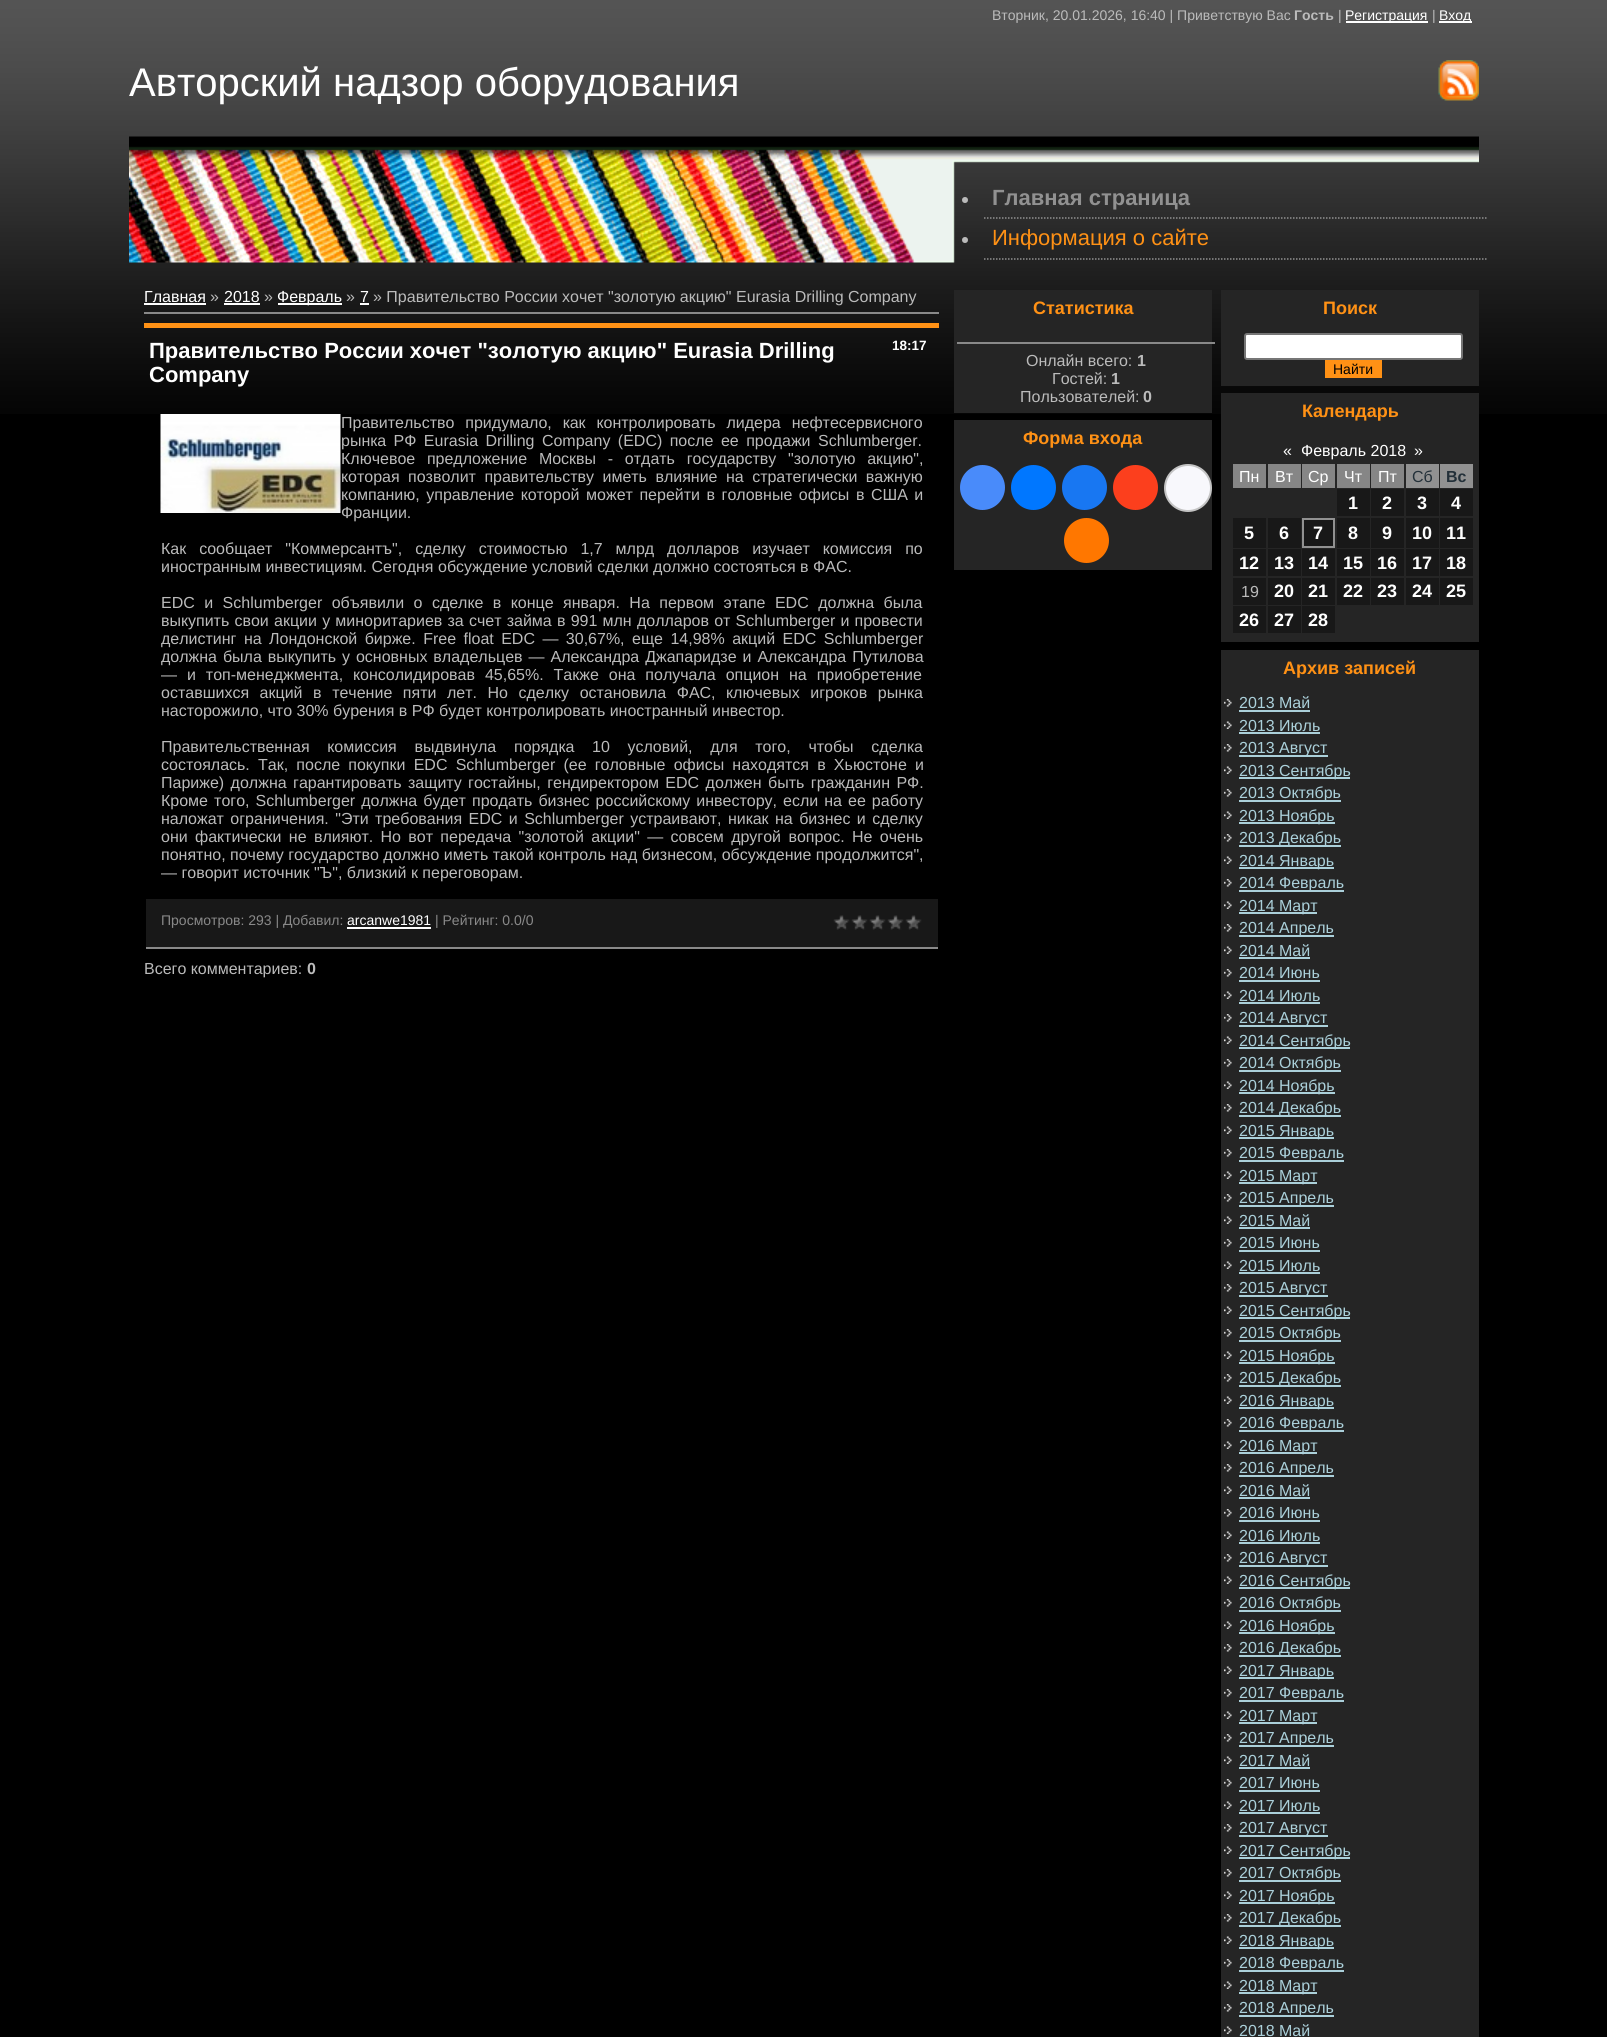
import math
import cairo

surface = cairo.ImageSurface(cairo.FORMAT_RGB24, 1607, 2037)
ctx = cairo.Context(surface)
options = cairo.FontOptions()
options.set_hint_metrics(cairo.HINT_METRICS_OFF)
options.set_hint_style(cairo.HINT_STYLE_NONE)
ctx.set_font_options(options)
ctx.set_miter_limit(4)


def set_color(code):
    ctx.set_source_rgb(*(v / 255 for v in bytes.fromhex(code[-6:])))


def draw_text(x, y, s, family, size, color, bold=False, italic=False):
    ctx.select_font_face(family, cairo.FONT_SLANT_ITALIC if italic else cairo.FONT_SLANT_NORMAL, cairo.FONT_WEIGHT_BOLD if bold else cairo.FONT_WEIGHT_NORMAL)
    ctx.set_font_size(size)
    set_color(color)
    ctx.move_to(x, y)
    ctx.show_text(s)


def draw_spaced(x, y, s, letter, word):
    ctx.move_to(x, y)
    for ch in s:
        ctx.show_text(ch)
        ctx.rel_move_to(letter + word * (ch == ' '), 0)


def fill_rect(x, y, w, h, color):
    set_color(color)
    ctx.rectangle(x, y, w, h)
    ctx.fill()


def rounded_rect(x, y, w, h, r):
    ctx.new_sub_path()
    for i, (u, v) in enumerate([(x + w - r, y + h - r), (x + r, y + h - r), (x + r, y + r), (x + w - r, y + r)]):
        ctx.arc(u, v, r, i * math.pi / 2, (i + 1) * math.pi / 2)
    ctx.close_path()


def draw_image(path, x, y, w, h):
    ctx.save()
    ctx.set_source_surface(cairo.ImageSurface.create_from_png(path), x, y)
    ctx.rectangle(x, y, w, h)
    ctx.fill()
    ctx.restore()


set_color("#000000")
ctx.paint()
draw_image("assets/img1.png", 0, 0, 1607, 414)
draw_text(992, 20, "Вторник, 20.01.2026, 16:40 | Приветствую Вас", "Liberation Sans", 14, "#bbbbbb")
draw_text(1294, 20, "Гость", "Liberation Sans", 14, "#bbbbbb", bold=True)
draw_text(1338, 20, "|", "Liberation Sans", 14, "#bbbbbb")
fill_rect(1346, 21, 82, 2, "#ffffff")
draw_text(1345, 20, "Регистрация", "Liberation Sans", 14, "#ffffff")
draw_text(1432, 20, "|", "Liberation Sans", 14, "#bbbbbb")
fill_rect(1439, 21, 33, 2, "#ffffff")
draw_text(1439, 20, "Вход", "Liberation Sans", 14, "#ffffff")
draw_text(129, 96, "Авторский надзор оборудования", "Liberation Sans", 40, "#ffffff")
draw_image("assets/img2.png", 1438, 60, 41, 41)
draw_image("assets/img3.png", 129, 136, 1350, 127)
draw_text(144, 302, "Главная", "Liberation Sans", 16, "#ffffff")
fill_rect(144, 303, 62, 2, "#ffffff")
draw_text(210, 302, "»", "Liberation Sans", 16, "#bbbbbb")
draw_text(224, 302, "2018", "Liberation Sans", 16, "#ffffff")
fill_rect(224, 303, 36, 2, "#ffffff")
draw_text(264, 302, "»", "Liberation Sans", 16, "#bbbbbb")
fill_rect(278, 303, 64, 2, "#ffffff")
draw_text(277, 302, "Февраль", "Liberation Sans", 16, "#ffffff")
draw_text(346, 302, "»", "Liberation Sans", 16, "#bbbbbb")
draw_text(360, 302, "7", "Liberation Sans", 16, "#ffffff")
fill_rect(360, 303, 9, 2, "#ffffff")
draw_text(373, 302, "» Правительство России хочет \"золотую акцию\" Eurasia Drilling Company", "Liberation Sans", 16, "#bbbbbb")
fill_rect(144, 312, 795, 2, "#898989")
fill_rect(144, 323, 795, 5, "#ff9115")
draw_text(149, 358, "Правительство России хочет \"золотую акцию\" Eurasia Drilling", "Liberation Sans", 22, "#ffffff", bold=True)
draw_text(892, 350, "18:17", "Liberation Sans", 13.5, "#ffffff", bold=True)
draw_text(149, 382, "Company", "Liberation Sans", 22, "#ffffff", bold=True)
draw_image("assets/img4.png", 160, 414, 181, 99)
ctx.select_font_face("Liberation Sans")
ctx.set_font_size(16)
set_color("#bbbbbb")
draw_spaced(341, 428, "Правительство придумало, как контролировать лидера нефтесервисного", 0, 6.5)
draw_spaced(341, 446, "рынка РФ Eurasia Drilling Company (EDC) после ее продажи Schlumberger.", 0, 3)
draw_spaced(341, 464, "Ключевое предложение Москвы - отдать государству \"золотую акцию\",", 0, 7.25)
draw_spaced(341, 482, "которая позволит правительству иметь влияние на стратегически важную", 0, 4)
draw_spaced(341, 500, "компанию, управление которой может перейти в головные офисы в США и", 0, 2.1)
draw_text(341, 518, "Франции.", "Liberation Sans", 16, "#bbbbbb")
draw_spaced(161, 554, "Как сообщает \"Коммерсантъ\", сделку стоимостью 1,7 млрд долларов изучает комиссия по", 0, 8.5)
draw_text(161, 572, "иностранным инвестициям. Сегодня обсуждение условий сделки должно состояться в ФАС.", "Liberation Sans", 16, "#bbbbbb")
draw_spaced(161, 608, "EDC и Schlumberger объявили о сделке в конце января. На первом этапе EDC должна была", 0, 5)
draw_spaced(161, 626, "выкупить свои акции у миноритариев за счет займа в 991 млн долларов от Schlumberger и провести", 0, 0.75)
draw_spaced(161, 644, "делистинг на Лондонской бирже. Free float EDC — 30,67%, еще 14,98% акций EDC Schlumberger", 0, 3)
draw_spaced(161, 662, "должна была выкупить у основных владельцев — Александра Джапаридзе и Александра Путилова", 0, 1.5)
draw_spaced(161, 680, "— и топ-менеджмента, консолидировав 45,65%. Также она получала опцион на приобретение", 0, 5.5)
draw_spaced(161, 698, "оставшихся акций в течение пяти лет. Но сделку остановила ФАС, ключевых игроков рынка", 0, 6.1)
draw_text(161, 716, "насторожило, что 30% бурения в РФ будет контролировать иностранный инвестор.", "Liberation Sans", 16, "#bbbbbb")
draw_spaced(161, 752, "Правительственная комиссия выдвинула порядка 10 условий, для того, чтобы сделка", 0, 13.25)
draw_spaced(161, 770, "состоялась. Так, после покупки EDC Schlumberger (ее головные офисы находятся в Хьюстоне и", 0, 3.75)
draw_spaced(161, 788, "Париже) должна гарантировать защиту гостайны, гендиректором EDC должен быть гражданин РФ.", 0, 2)
draw_spaced(161, 806, "Кроме того, Schlumberger должна будет продать бизнес российскому инвестору, если на ее работу", 0, 1.6)
draw_spaced(161, 824, "наложат ограничения. \"Эти требования EDC и Schlumberger устраивают, никак на бизнес и сделку", 0, 2)
draw_spaced(161, 842, "они фактически не влияют. Но вот передача \"золотой акции\" — совсем другой вопрос. Не очень", 0, 2.9)
draw_text(161, 860, "понятно, почему государство должно иметь такой контроль над бизнесом, обсуждение продолжится\",", "Liberation Sans", 16, "#bbbbbb")
draw_text(161, 878, "— говорит источник \"Ъ\", близкий к переговорам.", "Liberation Sans", 16, "#bbbbbb")
fill_rect(146, 899, 792, 48, "#181818")
fill_rect(146, 947, 792, 2, "#898989")
draw_text(161, 925, "Просмотров: 293 | Добавил:", "Liberation Sans", 14, "#898989")
draw_text(347, 925, "arcanwe1981", "Liberation Sans", 14, "#ffffff")
fill_rect(347, 927, 84, 2, "#ffffff")
draw_text(435, 925, "| Рейтинг: 0.0/0", "Liberation Sans", 14, "#898989")
draw_image("assets/img5.png", 833, 915, 89, 15)
draw_text(144, 974, "Всего комментариев:", "Liberation Sans", 16, "#bbbbbb")
draw_text(307, 974, "0", "Liberation Sans", 16, "#bbbbbb", bold=True)
ctx.new_path()
ctx.move_to(984, 218)
ctx.line_to(1486.5, 218)
set_color("#919191")
ctx.set_line_width(1.5)
ctx.set_dash([1.5, 1.5])
ctx.stroke()
set_color("#bbbbbb")
ctx.arc(965, 200, 3, 0, 2 * math.pi)
ctx.fill()
draw_text(992, 205, "Главная страница", "Liberation Sans", 22, "#919191", bold=True)
ctx.new_path()
ctx.move_to(984, 259)
ctx.line_to(1486.5, 259)
ctx.stroke()
set_color("#bbbbbb")
ctx.arc(965, 240, 3, 0, 2 * math.pi)
ctx.fill()
draw_text(992, 245, "Информация о сайте", "Liberation Sans", 22, "#ff9115")
fill_rect(954, 290, 258, 123, "#252525")
draw_text(1033, 314, "Статистика", "Liberation Sans", 18, "#ff9115", bold=True)
fill_rect(957, 342, 258, 2, "#898989")
draw_text(1026, 366, "Онлайн всего:", "Liberation Sans", 16, "#bbbbbb")
draw_text(1137, 366, "1", "Liberation Sans", 16, "#bbbbbb", bold=True)
draw_text(1052, 384, "Гостей:", "Liberation Sans", 16, "#bbbbbb")
draw_text(1111, 384, "1", "Liberation Sans", 16, "#bbbbbb", bold=True)
draw_text(1020, 402, "Пользователей:", "Liberation Sans", 16, "#bbbbbb")
draw_text(1143, 402, "0", "Liberation Sans", 16, "#bbbbbb", bold=True)
fill_rect(954, 420, 258, 150, "#252525")
draw_text(1023, 444, "Форма входа", "Liberation Sans", 18, "#ff9115", bold=True)
set_color("#498bfa")
ctx.new_path()
ctx.arc(982.5, 487.5, 22.5, 0, 2 * math.pi)
ctx.fill()
set_color("#0077ff")
ctx.arc(1033.5, 487.5, 22.5, 0, 2 * math.pi)
ctx.fill()
set_color("#1877f2")
ctx.arc(1084.5, 487.5, 22.5, 0, 2 * math.pi)
ctx.fill()
set_color("#fc3f1d")
ctx.arc(1135.5, 487.5, 22.5, 0, 2 * math.pi)
ctx.fill()
set_color("#f8f8fc")
ctx.arc(1188, 488, 23, 0, 2 * math.pi)
ctx.fill_preserve()
set_color("#c4c4c4")
ctx.set_line_width(2)
ctx.set_dash([])
ctx.stroke()
set_color("#ff7700")
ctx.arc(1086.5, 540.5, 22.5, 0, 2 * math.pi)
ctx.fill()
fill_rect(1221, 290, 258, 96, "#252525")
draw_text(1323, 314, "Поиск", "Liberation Sans", 18, "#ff9115", bold=True)
set_color("#ffffff")
rounded_rect(1245, 334, 217, 25, 2)
ctx.fill_preserve()
set_color("#767676")
ctx.stroke()
fill_rect(1325, 360, 57, 18, "#ff9115")
draw_text(1333, 374, "Найти", "Liberation Sans", 14, "#000000")
fill_rect(1221, 393, 258, 249, "#252525")
draw_text(1302, 417, "Календарь", "Liberation Sans", 18, "#ff9115", bold=True)
draw_text(1283, 456, "«", "Liberation Sans", 16, "#ffffff")
draw_text(1301, 456, "Февраль 2018", "Liberation Sans", 16, "#ffffff")
draw_text(1414, 456, "»", "Liberation Sans", 16, "#ffffff")
fill_rect(1233, 464, 33, 24, "#868686")
draw_text(1239, 482, "Пн", "Liberation Sans", 16, "#ffffff")
fill_rect(1268, 464, 33, 24, "#868686")
draw_text(1275, 482, "Вт", "Liberation Sans", 16, "#ffffff")
fill_rect(1302, 464, 33, 24, "#868686")
draw_text(1308, 482, "Ср", "Liberation Sans", 16, "#ffffff")
fill_rect(1337, 464, 33, 24, "#868686")
draw_text(1344, 482, "Чт", "Liberation Sans", 16, "#ffffff")
fill_rect(1371, 464, 33, 24, "#868686")
draw_text(1378, 482, "Пт", "Liberation Sans", 16, "#ffffff")
fill_rect(1406, 464, 33, 24, "#919191")
draw_text(1412, 482, "Сб", "Liberation Sans", 16, "#233039")
fill_rect(1440, 464, 33, 24, "#919191")
draw_text(1446, 482, "Вс", "Liberation Sans", 16, "#233039", bold=True)
fill_rect(1337, 489, 33, 27, "#181818")
draw_text(1348, 509, "1", "Liberation Sans", 18, "#ffffff", bold=True)
fill_rect(1371, 489, 33, 27, "#181818")
draw_text(1382, 509, "2", "Liberation Sans", 18, "#ffffff", bold=True)
fill_rect(1406, 489, 33, 27, "#181818")
draw_text(1417, 509, "3", "Liberation Sans", 18, "#ffffff", bold=True)
fill_rect(1440, 489, 33, 27, "#181818")
draw_text(1451, 509, "4", "Liberation Sans", 18, "#ffffff", bold=True)
fill_rect(1233, 518, 33, 30, "#181818")
draw_text(1244, 539, "5", "Liberation Sans", 18, "#ffffff", bold=True)
fill_rect(1268, 518, 33, 30, "#181818")
draw_text(1279, 539, "6", "Liberation Sans", 18, "#ffffff", bold=True)
set_color("#181818")
ctx.rectangle(1303, 519, 31, 28)
ctx.fill_preserve()
set_color("#919191")
ctx.stroke()
draw_text(1313, 539, "7", "Liberation Sans", 18, "#ffffff", bold=True)
fill_rect(1337, 518, 33, 30, "#181818")
draw_text(1348, 539, "8", "Liberation Sans", 18, "#ffffff", bold=True)
fill_rect(1371, 518, 33, 30, "#181818")
draw_text(1382, 539, "9", "Liberation Sans", 18, "#ffffff", bold=True)
fill_rect(1406, 518, 33, 30, "#181818")
draw_text(1412, 539, "10", "Liberation Sans", 18, "#ffffff", bold=True)
fill_rect(1440, 518, 33, 30, "#181818")
draw_text(1446, 539, "11", "Liberation Sans", 18, "#ffffff", bold=True)
fill_rect(1233, 549, 33, 27, "#181818")
draw_text(1239, 569, "12", "Liberation Sans", 18, "#ffffff", bold=True)
fill_rect(1268, 549, 33, 27, "#181818")
draw_text(1274, 569, "13", "Liberation Sans", 18, "#ffffff", bold=True)
fill_rect(1302, 549, 33, 27, "#181818")
draw_text(1308, 569, "14", "Liberation Sans", 18, "#ffffff", bold=True)
fill_rect(1337, 549, 33, 27, "#181818")
draw_text(1343, 569, "15", "Liberation Sans", 18, "#ffffff", bold=True)
fill_rect(1371, 549, 33, 27, "#181818")
draw_text(1377, 569, "16", "Liberation Sans", 18, "#ffffff", bold=True)
fill_rect(1406, 549, 33, 27, "#181818")
draw_text(1412, 569, "17", "Liberation Sans", 18, "#ffffff", bold=True)
fill_rect(1440, 549, 33, 27, "#181818")
draw_text(1446, 569, "18", "Liberation Sans", 18, "#ffffff", bold=True)
fill_rect(1233, 578, 33, 27, "#181818")
draw_text(1241, 597, "19", "Liberation Sans", 16, "#bbbbbb")
fill_rect(1268, 578, 33, 27, "#181818")
draw_text(1274, 597, "20", "Liberation Sans", 18, "#ffffff", bold=True)
fill_rect(1302, 578, 33, 27, "#181818")
draw_text(1308, 597, "21", "Liberation Sans", 18, "#ffffff", bold=True)
fill_rect(1337, 578, 33, 27, "#181818")
draw_text(1343, 597, "22", "Liberation Sans", 18, "#ffffff", bold=True)
fill_rect(1371, 578, 33, 27, "#181818")
draw_text(1377, 597, "23", "Liberation Sans", 18, "#ffffff", bold=True)
fill_rect(1406, 578, 33, 27, "#181818")
draw_text(1412, 597, "24", "Liberation Sans", 18, "#ffffff", bold=True)
fill_rect(1440, 578, 33, 27, "#181818")
draw_text(1446, 597, "25", "Liberation Sans", 18, "#ffffff", bold=True)
fill_rect(1233, 606, 33, 27, "#181818")
draw_text(1239, 626, "26", "Liberation Sans", 18, "#ffffff", bold=True)
fill_rect(1268, 606, 33, 27, "#181818")
draw_text(1274, 626, "27", "Liberation Sans", 18, "#ffffff", bold=True)
fill_rect(1302, 606, 33, 27, "#181818")
draw_text(1308, 626, "28", "Liberation Sans", 18, "#ffffff", bold=True)
fill_rect(1221, 650, 258, 1387, "#252525")
draw_text(1283, 674, "Архив записей", "Liberation Sans", 18, "#ff9115", bold=True)
draw_image("assets/img6.png", 1224, 699, 8, 8)
draw_text(1239, 708, "2013 Май", "Liberation Sans", 16, "#abd0da")
fill_rect(1239, 710, 71, 2, "#abd0da")
draw_image("assets/img7.png", 1224, 721, 8, 8)
draw_text(1239, 731, "2013 Июль", "Liberation Sans", 16, "#abd0da")
fill_rect(1239, 732, 81, 2, "#abd0da")
draw_image("assets/img6.png", 1224, 744, 8, 8)
fill_rect(1239, 755, 89, 2, "#abd0da")
draw_text(1239, 753, "2013 Август", "Liberation Sans", 16, "#abd0da")
draw_image("assets/img7.png", 1224, 766, 8, 8)
fill_rect(1239, 777, 111, 2, "#abd0da")
draw_text(1239, 776, "2013 Сентябрь", "Liberation Sans", 16, "#abd0da")
draw_image("assets/img6.png", 1224, 789, 8, 8)
fill_rect(1239, 800, 102, 2, "#abd0da")
draw_text(1239, 798, "2013 Октябрь", "Liberation Sans", 16, "#abd0da")
draw_image("assets/img7.png", 1224, 811, 8, 8)
fill_rect(1239, 822, 96, 2, "#abd0da")
draw_text(1239, 821, "2013 Ноябрь", "Liberation Sans", 16, "#abd0da")
draw_image("assets/img6.png", 1224, 834, 8, 8)
fill_rect(1239, 845, 102, 2, "#abd0da")
draw_text(1239, 843, "2013 Декабрь", "Liberation Sans", 16, "#abd0da")
draw_image("assets/img7.png", 1224, 856, 8, 8)
fill_rect(1239, 867, 95, 2, "#abd0da")
draw_text(1239, 866, "2014 Январь", "Liberation Sans", 16, "#abd0da")
draw_image("assets/img6.png", 1224, 879, 8, 8)
fill_rect(1239, 890, 105, 2, "#abd0da")
draw_text(1239, 888, "2014 Февраль", "Liberation Sans", 16, "#abd0da")
draw_image("assets/img7.png", 1224, 901, 8, 8)
fill_rect(1239, 912, 78, 2, "#abd0da")
draw_text(1239, 911, "2014 Март", "Liberation Sans", 16, "#abd0da")
draw_image("assets/img6.png", 1224, 924, 8, 8)
fill_rect(1239, 935, 95, 2, "#abd0da")
draw_text(1239, 933, "2014 Апрель", "Liberation Sans", 16, "#abd0da")
draw_image("assets/img7.png", 1224, 946, 8, 8)
draw_text(1239, 956, "2014 Май", "Liberation Sans", 16, "#abd0da")
fill_rect(1239, 957, 71, 2, "#abd0da")
draw_image("assets/img6.png", 1224, 969, 8, 8)
draw_text(1239, 978, "2014 Июнь", "Liberation Sans", 16, "#abd0da")
fill_rect(1239, 980, 81, 2, "#abd0da")
draw_image("assets/img7.png", 1224, 991, 8, 8)
draw_text(1239, 1001, "2014 Июль", "Liberation Sans", 16, "#abd0da")
fill_rect(1239, 1002, 81, 2, "#abd0da")
draw_image("assets/img6.png", 1224, 1014, 8, 8)
fill_rect(1239, 1025, 89, 2, "#abd0da")
draw_text(1239, 1023, "2014 Август", "Liberation Sans", 16, "#abd0da")
draw_image("assets/img7.png", 1224, 1036, 8, 8)
fill_rect(1239, 1047, 111, 2, "#abd0da")
draw_text(1239, 1046, "2014 Сентябрь", "Liberation Sans", 16, "#abd0da")
draw_image("assets/img6.png", 1224, 1059, 8, 8)
fill_rect(1239, 1070, 102, 2, "#abd0da")
draw_text(1239, 1068, "2014 Октябрь", "Liberation Sans", 16, "#abd0da")
draw_image("assets/img7.png", 1224, 1081, 8, 8)
fill_rect(1239, 1092, 96, 2, "#abd0da")
draw_text(1239, 1091, "2014 Ноябрь", "Liberation Sans", 16, "#abd0da")
draw_image("assets/img6.png", 1224, 1104, 8, 8)
fill_rect(1239, 1115, 102, 2, "#abd0da")
draw_text(1239, 1113, "2014 Декабрь", "Liberation Sans", 16, "#abd0da")
draw_image("assets/img7.png", 1224, 1126, 8, 8)
fill_rect(1239, 1137, 95, 2, "#abd0da")
draw_text(1239, 1136, "2015 Январь", "Liberation Sans", 16, "#abd0da")
draw_image("assets/img6.png", 1224, 1149, 8, 8)
fill_rect(1239, 1160, 105, 2, "#abd0da")
draw_text(1239, 1158, "2015 Февраль", "Liberation Sans", 16, "#abd0da")
draw_image("assets/img7.png", 1224, 1171, 8, 8)
fill_rect(1239, 1182, 78, 2, "#abd0da")
draw_text(1239, 1181, "2015 Март", "Liberation Sans", 16, "#abd0da")
draw_image("assets/img6.png", 1224, 1194, 8, 8)
fill_rect(1239, 1205, 95, 2, "#abd0da")
draw_text(1239, 1203, "2015 Апрель", "Liberation Sans", 16, "#abd0da")
draw_image("assets/img7.png", 1224, 1216, 8, 8)
draw_text(1239, 1226, "2015 Май", "Liberation Sans", 16, "#abd0da")
fill_rect(1239, 1227, 71, 2, "#abd0da")
draw_image("assets/img6.png", 1224, 1239, 8, 8)
draw_text(1239, 1248, "2015 Июнь", "Liberation Sans", 16, "#abd0da")
fill_rect(1239, 1250, 81, 2, "#abd0da")
draw_image("assets/img7.png", 1224, 1261, 8, 8)
draw_text(1239, 1271, "2015 Июль", "Liberation Sans", 16, "#abd0da")
fill_rect(1239, 1272, 81, 2, "#abd0da")
draw_image("assets/img6.png", 1224, 1284, 8, 8)
fill_rect(1239, 1295, 89, 2, "#abd0da")
draw_text(1239, 1293, "2015 Август", "Liberation Sans", 16, "#abd0da")
draw_image("assets/img7.png", 1224, 1306, 8, 8)
fill_rect(1239, 1317, 111, 2, "#abd0da")
draw_text(1239, 1316, "2015 Сентябрь", "Liberation Sans", 16, "#abd0da")
draw_image("assets/img6.png", 1224, 1329, 8, 8)
fill_rect(1239, 1340, 102, 2, "#abd0da")
draw_text(1239, 1338, "2015 Октябрь", "Liberation Sans", 16, "#abd0da")
draw_image("assets/img7.png", 1224, 1351, 8, 8)
fill_rect(1239, 1362, 96, 2, "#abd0da")
draw_text(1239, 1361, "2015 Ноябрь", "Liberation Sans", 16, "#abd0da")
draw_image("assets/img6.png", 1224, 1374, 8, 8)
fill_rect(1239, 1385, 102, 2, "#abd0da")
draw_text(1239, 1383, "2015 Декабрь", "Liberation Sans", 16, "#abd0da")
draw_image("assets/img7.png", 1224, 1396, 8, 8)
fill_rect(1239, 1407, 95, 2, "#abd0da")
draw_text(1239, 1406, "2016 Январь", "Liberation Sans", 16, "#abd0da")
draw_image("assets/img6.png", 1224, 1419, 8, 8)
fill_rect(1239, 1430, 105, 2, "#abd0da")
draw_text(1239, 1428, "2016 Февраль", "Liberation Sans", 16, "#abd0da")
draw_image("assets/img7.png", 1224, 1441, 8, 8)
fill_rect(1239, 1452, 78, 2, "#abd0da")
draw_text(1239, 1451, "2016 Март", "Liberation Sans", 16, "#abd0da")
draw_image("assets/img6.png", 1224, 1464, 8, 8)
fill_rect(1239, 1475, 95, 2, "#abd0da")
draw_text(1239, 1473, "2016 Апрель", "Liberation Sans", 16, "#abd0da")
draw_image("assets/img7.png", 1224, 1486, 8, 8)
draw_text(1239, 1496, "2016 Май", "Liberation Sans", 16, "#abd0da")
fill_rect(1239, 1497, 71, 2, "#abd0da")
draw_image("assets/img6.png", 1224, 1509, 8, 8)
draw_text(1239, 1518, "2016 Июнь", "Liberation Sans", 16, "#abd0da")
fill_rect(1239, 1520, 81, 2, "#abd0da")
draw_image("assets/img7.png", 1224, 1531, 8, 8)
draw_text(1239, 1541, "2016 Июль", "Liberation Sans", 16, "#abd0da")
fill_rect(1239, 1542, 81, 2, "#abd0da")
draw_image("assets/img6.png", 1224, 1554, 8, 8)
fill_rect(1239, 1565, 89, 2, "#abd0da")
draw_text(1239, 1563, "2016 Август", "Liberation Sans", 16, "#abd0da")
draw_image("assets/img7.png", 1224, 1576, 8, 8)
fill_rect(1239, 1587, 111, 2, "#abd0da")
draw_text(1239, 1586, "2016 Сентябрь", "Liberation Sans", 16, "#abd0da")
draw_image("assets/img6.png", 1224, 1599, 8, 8)
fill_rect(1239, 1610, 102, 2, "#abd0da")
draw_text(1239, 1608, "2016 Октябрь", "Liberation Sans", 16, "#abd0da")
draw_image("assets/img7.png", 1224, 1621, 8, 8)
fill_rect(1239, 1632, 96, 2, "#abd0da")
draw_text(1239, 1631, "2016 Ноябрь", "Liberation Sans", 16, "#abd0da")
draw_image("assets/img6.png", 1224, 1644, 8, 8)
fill_rect(1239, 1655, 102, 2, "#abd0da")
draw_text(1239, 1653, "2016 Декабрь", "Liberation Sans", 16, "#abd0da")
draw_image("assets/img7.png", 1224, 1666, 8, 8)
fill_rect(1239, 1677, 95, 2, "#abd0da")
draw_text(1239, 1676, "2017 Январь", "Liberation Sans", 16, "#abd0da")
draw_image("assets/img6.png", 1224, 1689, 8, 8)
fill_rect(1239, 1700, 105, 2, "#abd0da")
draw_text(1239, 1698, "2017 Февраль", "Liberation Sans", 16, "#abd0da")
draw_image("assets/img7.png", 1224, 1711, 8, 8)
fill_rect(1239, 1722, 78, 2, "#abd0da")
draw_text(1239, 1721, "2017 Март", "Liberation Sans", 16, "#abd0da")
draw_image("assets/img6.png", 1224, 1734, 8, 8)
fill_rect(1239, 1745, 95, 2, "#abd0da")
draw_text(1239, 1743, "2017 Апрель", "Liberation Sans", 16, "#abd0da")
draw_image("assets/img7.png", 1224, 1756, 8, 8)
draw_text(1239, 1766, "2017 Май", "Liberation Sans", 16, "#abd0da")
fill_rect(1239, 1767, 71, 2, "#abd0da")
draw_image("assets/img6.png", 1224, 1779, 8, 8)
draw_text(1239, 1788, "2017 Июнь", "Liberation Sans", 16, "#abd0da")
fill_rect(1239, 1790, 81, 2, "#abd0da")
draw_image("assets/img7.png", 1224, 1801, 8, 8)
draw_text(1239, 1811, "2017 Июль", "Liberation Sans", 16, "#abd0da")
fill_rect(1239, 1812, 81, 2, "#abd0da")
draw_image("assets/img6.png", 1224, 1824, 8, 8)
fill_rect(1239, 1835, 89, 2, "#abd0da")
draw_text(1239, 1833, "2017 Август", "Liberation Sans", 16, "#abd0da")
draw_image("assets/img7.png", 1224, 1846, 8, 8)
fill_rect(1239, 1857, 111, 2, "#abd0da")
draw_text(1239, 1856, "2017 Сентябрь", "Liberation Sans", 16, "#abd0da")
draw_image("assets/img6.png", 1224, 1869, 8, 8)
fill_rect(1239, 1880, 102, 2, "#abd0da")
draw_text(1239, 1878, "2017 Октябрь", "Liberation Sans", 16, "#abd0da")
draw_image("assets/img7.png", 1224, 1891, 8, 8)
fill_rect(1239, 1902, 96, 2, "#abd0da")
draw_text(1239, 1901, "2017 Ноябрь", "Liberation Sans", 16, "#abd0da")
draw_image("assets/img6.png", 1224, 1914, 8, 8)
fill_rect(1239, 1925, 102, 2, "#abd0da")
draw_text(1239, 1923, "2017 Декабрь", "Liberation Sans", 16, "#abd0da")
draw_image("assets/img7.png", 1224, 1936, 8, 8)
fill_rect(1239, 1947, 95, 2, "#abd0da")
draw_text(1239, 1946, "2018 Январь", "Liberation Sans", 16, "#abd0da")
draw_image("assets/img6.png", 1224, 1959, 8, 8)
fill_rect(1239, 1970, 105, 2, "#abd0da")
draw_text(1239, 1968, "2018 Февраль", "Liberation Sans", 16, "#abd0da")
draw_image("assets/img7.png", 1224, 1981, 8, 8)
fill_rect(1239, 1992, 78, 2, "#abd0da")
draw_text(1239, 1991, "2018 Март", "Liberation Sans", 16, "#abd0da")
draw_image("assets/img6.png", 1224, 2004, 8, 8)
fill_rect(1239, 2015, 95, 2, "#abd0da")
draw_text(1239, 2013, "2018 Апрель", "Liberation Sans", 16, "#abd0da")
draw_image("assets/img7.png", 1224, 2026, 8, 8)
draw_text(1239, 2036, "2018 Май", "Liberation Sans", 16, "#abd0da")
surface.write_to_png("output.png")
